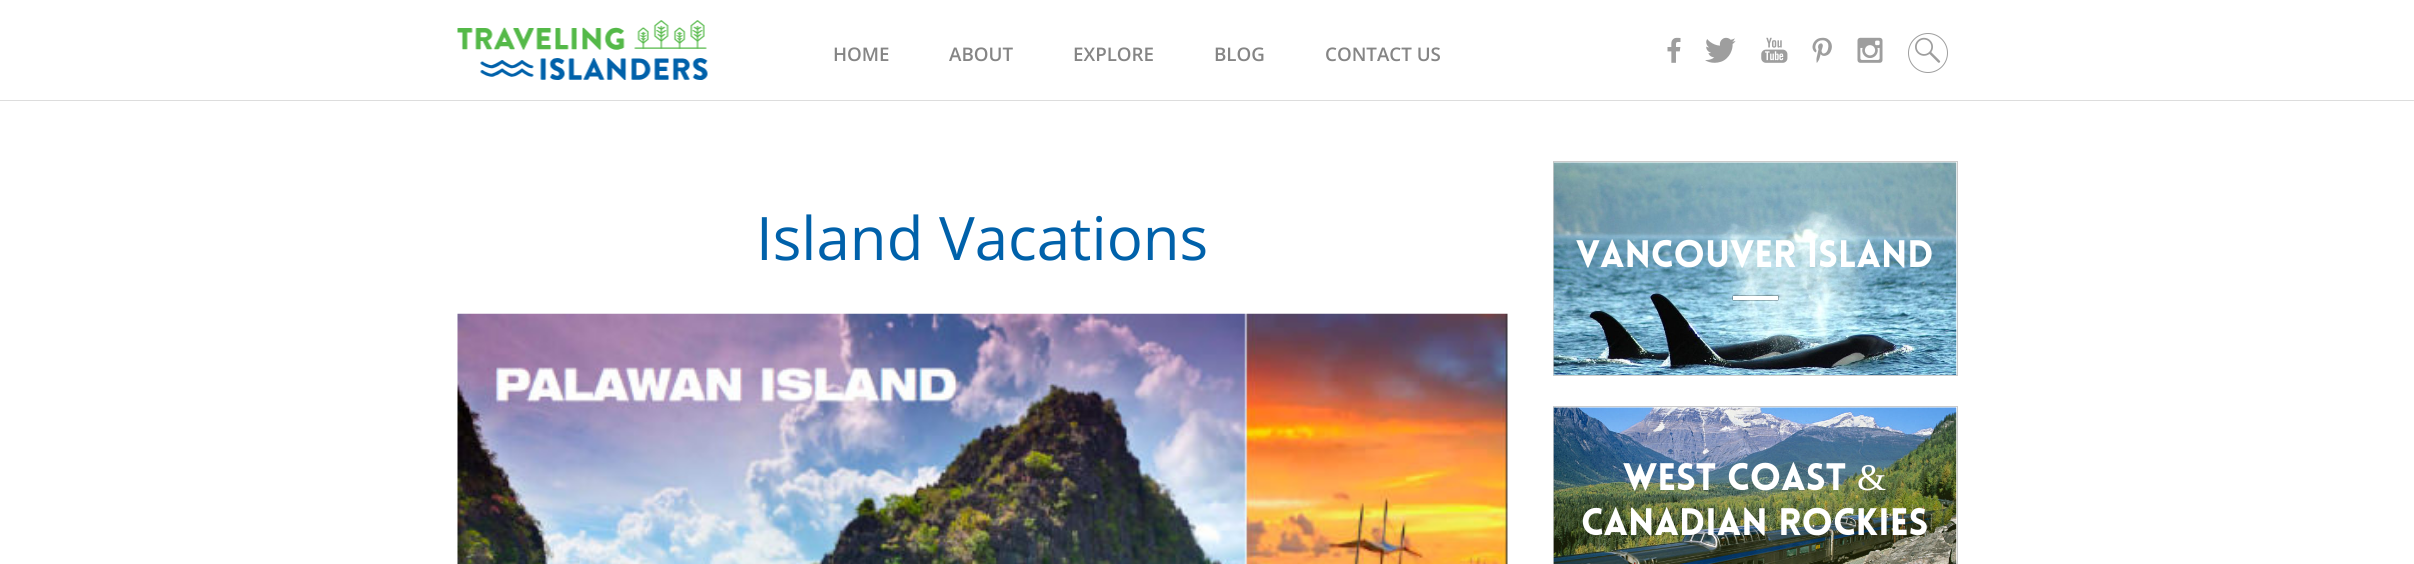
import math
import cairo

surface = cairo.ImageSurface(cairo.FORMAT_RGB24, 2414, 564)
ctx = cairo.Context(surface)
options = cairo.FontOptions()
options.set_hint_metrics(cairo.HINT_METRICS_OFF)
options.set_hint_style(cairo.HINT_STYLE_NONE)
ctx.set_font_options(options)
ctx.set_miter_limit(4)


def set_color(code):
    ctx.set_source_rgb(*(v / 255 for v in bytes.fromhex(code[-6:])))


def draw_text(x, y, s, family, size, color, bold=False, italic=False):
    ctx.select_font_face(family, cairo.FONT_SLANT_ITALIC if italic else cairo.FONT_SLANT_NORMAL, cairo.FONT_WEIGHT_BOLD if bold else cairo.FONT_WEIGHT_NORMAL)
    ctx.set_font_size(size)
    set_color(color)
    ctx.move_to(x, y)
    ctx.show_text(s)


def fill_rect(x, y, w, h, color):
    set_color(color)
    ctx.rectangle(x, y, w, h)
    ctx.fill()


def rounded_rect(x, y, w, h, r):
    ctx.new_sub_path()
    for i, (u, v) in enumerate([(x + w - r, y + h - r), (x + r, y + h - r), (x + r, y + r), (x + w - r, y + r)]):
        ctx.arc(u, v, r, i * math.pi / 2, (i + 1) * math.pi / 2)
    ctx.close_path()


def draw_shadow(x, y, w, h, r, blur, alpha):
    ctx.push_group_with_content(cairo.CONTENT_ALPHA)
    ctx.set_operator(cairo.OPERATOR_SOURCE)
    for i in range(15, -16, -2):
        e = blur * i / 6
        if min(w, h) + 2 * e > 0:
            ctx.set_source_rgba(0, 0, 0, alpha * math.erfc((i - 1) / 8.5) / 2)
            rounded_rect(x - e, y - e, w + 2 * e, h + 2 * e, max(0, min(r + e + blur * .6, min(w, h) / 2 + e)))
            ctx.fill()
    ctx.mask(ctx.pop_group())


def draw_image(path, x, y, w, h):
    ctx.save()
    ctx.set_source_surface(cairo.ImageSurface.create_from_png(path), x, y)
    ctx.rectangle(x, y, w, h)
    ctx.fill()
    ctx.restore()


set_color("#ffffff")
ctx.paint()
draw_image("assets/img1.png", 457, 20, 251, 60)
draw_text(833, 61, "HOME", "Open Sans SemiBold", 18.75, "#858585")
draw_text(949, 61, "ABOUT", "Open Sans SemiBold", 18.75, "#858585")
draw_text(1073, 61, "EXPLORE", "Open Sans SemiBold", 18.75, "#858585")
draw_text(1214, 61, "BLOG", "Open Sans SemiBold", 18.75, "#858585")
draw_text(1325, 61, "CONTACT US", "Open Sans SemiBold", 18.75, "#858585")
draw_image("assets/img2.png", 1667, 37, 14, 26)
draw_image("assets/img3.png", 1705, 37, 31, 26)
draw_image("assets/img4.png", 1761, 37, 27, 26)
draw_image("assets/img5.png", 1812, 37, 20, 26)
draw_image("assets/img6.png", 1857, 37, 26, 26)
ctx.arc(1928, 53, 19.5, 0, 2 * math.pi)
set_color("#9e9e9e")
ctx.set_line_width(1)
ctx.stroke()
draw_image("assets/img7.png", 1915, 37, 26, 26)
fill_rect(0, 100, 2414, 1, "#dddddd")
draw_text(756, 260, "Island Vacations", "Open Sans", 60, "#0061aa")
draw_image("assets/img8.png", 457, 313, 1051, 251)
ctx.rectangle(1553.5, 161.5, 404, 214)
set_color("#cccccc")
ctx.stroke()
draw_image("assets/img9.png", 1553, 162, 404, 213)
draw_text(1576, 267, "VANCOUVER ISLAND", "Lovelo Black", 37.5, "#ffffff")
set_color("#000000")
draw_shadow(1733, 296, 45, 4, 0, 0.5, 1)
fill_rect(1733, 296, 45, 4, "#ffffff")
ctx.rectangle(1553.5, 406.5, 404, 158)
set_color("#cccccc")
ctx.stroke()
draw_image("assets/img10.png", 1553, 407, 404, 157)
draw_text(1623, 490, "WEST COAST", "Lovelo Black", 37.5, "#ffffff")
draw_text(1857, 490, "&", "Liberation Serif", 37.5, "#ffffff")
draw_text(1581, 535, "CANADIAN ROCKIES", "Lovelo Black", 37.5, "#ffffff")
surface.write_to_png("output.png")
